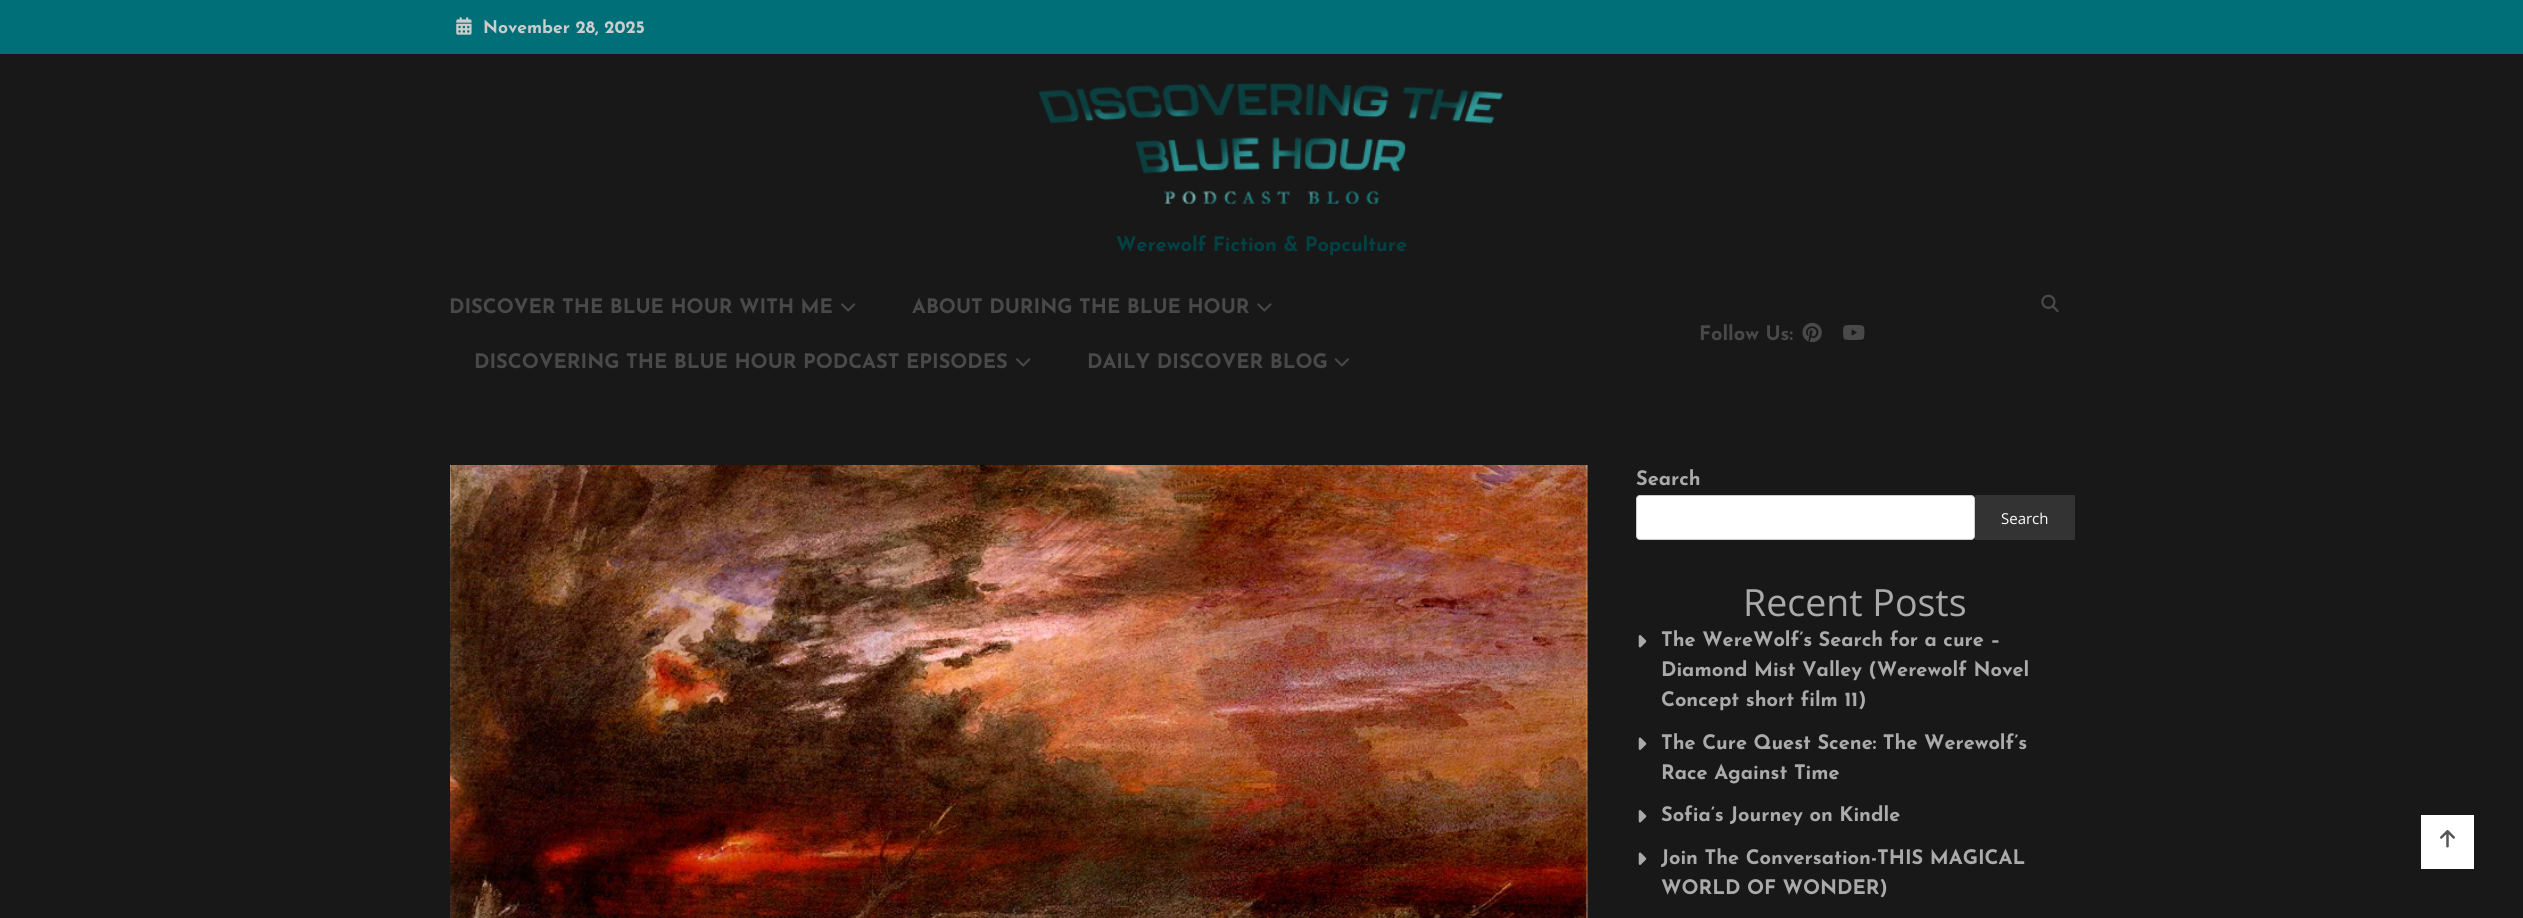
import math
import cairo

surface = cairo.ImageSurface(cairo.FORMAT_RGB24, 2523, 918)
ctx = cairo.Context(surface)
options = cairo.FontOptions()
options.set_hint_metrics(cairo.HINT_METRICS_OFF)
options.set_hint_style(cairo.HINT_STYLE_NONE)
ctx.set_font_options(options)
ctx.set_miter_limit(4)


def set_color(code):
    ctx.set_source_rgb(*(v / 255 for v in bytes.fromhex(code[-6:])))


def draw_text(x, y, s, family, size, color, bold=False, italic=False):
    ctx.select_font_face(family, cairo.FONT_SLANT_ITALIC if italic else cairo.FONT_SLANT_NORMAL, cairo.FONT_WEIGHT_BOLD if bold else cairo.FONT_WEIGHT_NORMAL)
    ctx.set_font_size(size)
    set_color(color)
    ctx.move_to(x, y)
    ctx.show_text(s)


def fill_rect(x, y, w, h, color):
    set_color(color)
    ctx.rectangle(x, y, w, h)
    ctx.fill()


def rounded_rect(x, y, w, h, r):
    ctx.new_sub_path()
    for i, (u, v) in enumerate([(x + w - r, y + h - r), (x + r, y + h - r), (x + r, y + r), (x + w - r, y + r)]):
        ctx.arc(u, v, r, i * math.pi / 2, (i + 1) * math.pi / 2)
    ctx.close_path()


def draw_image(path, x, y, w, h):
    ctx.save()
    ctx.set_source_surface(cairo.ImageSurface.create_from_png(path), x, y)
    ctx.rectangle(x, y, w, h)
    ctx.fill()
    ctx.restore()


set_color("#181818")
ctx.paint()
fill_rect(0, 0, 2523, 54, "#006f77")
draw_image("assets/img1.png", 456, 17, 16, 18)
draw_text(483, 33, "November 28, 2025", "Josefin Sans Thin", 17.5, "#cccccc")
draw_image("assets/img2.png", 1038, 83, 465, 121)
draw_text(1116, 251, "Werewolf Fiction & Popculture", "Josefin Sans Thin", 20, "#004244")
draw_text(449, 313, "DISCOVER THE BLUE HOUR WITH ME", "Josefin Sans Thin", 20, "#494949")
draw_image("assets/img3.png", 841, 303, 15, 9)
draw_text(912, 313, "ABOUT DURING THE BLUE HOUR", "Josefin Sans Thin", 20, "#494949")
draw_image("assets/img4.png", 1257, 303, 15, 9)
draw_text(474, 368, "DISCOVERING THE BLUE HOUR PODCAST EPISODES", "Josefin Sans Thin", 20, "#494949")
draw_image("assets/img3.png", 1016, 358, 15, 9)
draw_text(1087, 368, "DAILY DISCOVER BLOG", "Josefin Sans Thin", 20, "#494949")
draw_image("assets/img5.png", 1334, 358, 15, 9)
draw_text(1699, 340, "Follow Us:", "Josefin Sans Thin", 20, "#494949")
draw_image("assets/img6.png", 1802, 322, 20, 21)
draw_image("assets/img7.png", 1843, 325, 22, 15)
draw_image("assets/img8.png", 2041, 294, 18, 19)
draw_image("assets/img9.png", 450, 465, 1138, 453)
draw_text(1636, 485, "Search", "Josefin Sans Thin", 20, "#aaaaaa")
set_color("#ffffff")
rounded_rect(1636.5, 495.5, 338, 44, 3.5)
ctx.fill_preserve()
set_color("#cccccc")
ctx.set_line_width(1)
ctx.stroke()
fill_rect(1975, 495, 100, 45, "#333333")
draw_text(2001, 524, "Search", "Open Sans", 15, "#ffffff")
draw_text(1743, 616, "Recent Posts", "Open Sans", 37.5, "#aaaaaa")
draw_image("assets/img10.png", 1638, 635, 9, 13)
draw_text(1661, 646, "The WereWolf’s Search for a cure –", "Josefin Sans Thin", 20, "#aaaaaa")
draw_text(1661, 676, "Diamond Mist Valley (Werewolf Novel", "Josefin Sans Thin", 20, "#aaaaaa")
draw_text(1661, 706, "Concept short film 11)", "Josefin Sans Thin", 20, "#aaaaaa")
draw_image("assets/img11.png", 1638, 737, 9, 13)
draw_text(1661, 749, "The Cure Quest Scene: The Werewolf’s", "Josefin Sans Thin", 20, "#aaaaaa")
draw_text(1661, 779, "Race Against Time", "Josefin Sans Thin", 20, "#aaaaaa")
draw_image("assets/img10.png", 1638, 810, 9, 13)
draw_text(1661, 821, "Sofia’s Journey on Kindle", "Josefin Sans Thin", 20, "#aaaaaa")
draw_image("assets/img11.png", 1638, 852, 9, 13)
draw_text(1661, 864, "Join The Conversation-THIS MAGICAL", "Josefin Sans Thin", 20, "#aaaaaa")
draw_text(1661, 894, "WORLD OF WONDER)", "Josefin Sans Thin", 20, "#aaaaaa")
fill_rect(2421, 815, 53, 54, "#ffffff")
draw_image("assets/img12.png", 2440, 830, 15, 18)
surface.write_to_png("output.png")
